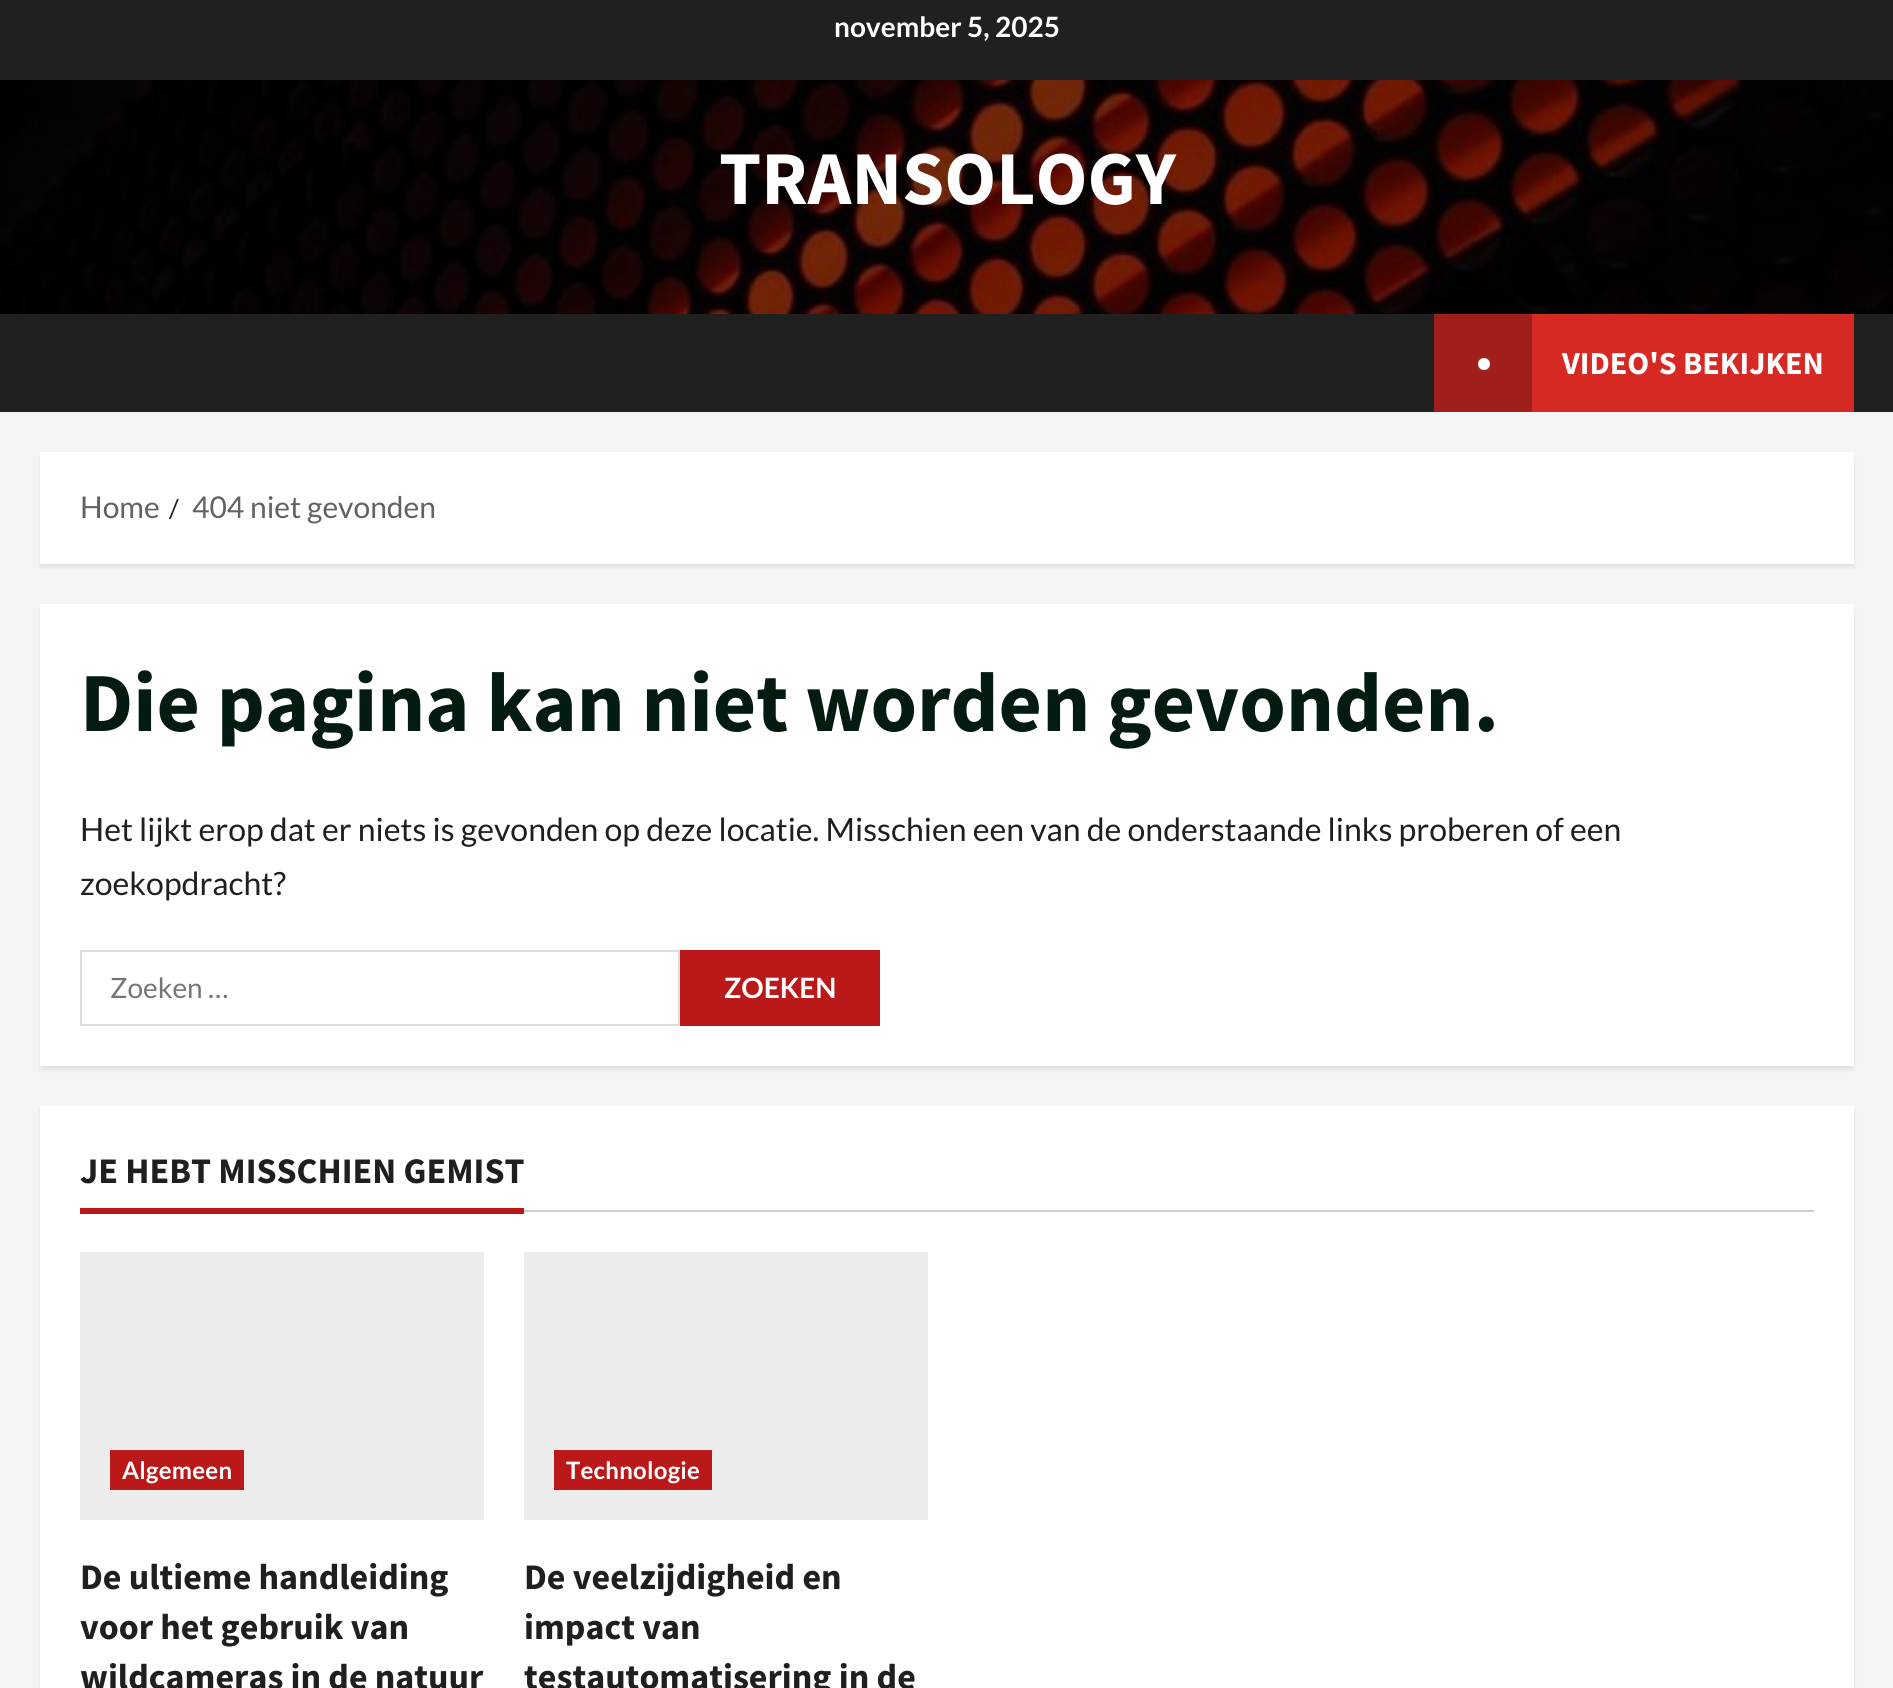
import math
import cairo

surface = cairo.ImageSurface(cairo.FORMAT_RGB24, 1893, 1688)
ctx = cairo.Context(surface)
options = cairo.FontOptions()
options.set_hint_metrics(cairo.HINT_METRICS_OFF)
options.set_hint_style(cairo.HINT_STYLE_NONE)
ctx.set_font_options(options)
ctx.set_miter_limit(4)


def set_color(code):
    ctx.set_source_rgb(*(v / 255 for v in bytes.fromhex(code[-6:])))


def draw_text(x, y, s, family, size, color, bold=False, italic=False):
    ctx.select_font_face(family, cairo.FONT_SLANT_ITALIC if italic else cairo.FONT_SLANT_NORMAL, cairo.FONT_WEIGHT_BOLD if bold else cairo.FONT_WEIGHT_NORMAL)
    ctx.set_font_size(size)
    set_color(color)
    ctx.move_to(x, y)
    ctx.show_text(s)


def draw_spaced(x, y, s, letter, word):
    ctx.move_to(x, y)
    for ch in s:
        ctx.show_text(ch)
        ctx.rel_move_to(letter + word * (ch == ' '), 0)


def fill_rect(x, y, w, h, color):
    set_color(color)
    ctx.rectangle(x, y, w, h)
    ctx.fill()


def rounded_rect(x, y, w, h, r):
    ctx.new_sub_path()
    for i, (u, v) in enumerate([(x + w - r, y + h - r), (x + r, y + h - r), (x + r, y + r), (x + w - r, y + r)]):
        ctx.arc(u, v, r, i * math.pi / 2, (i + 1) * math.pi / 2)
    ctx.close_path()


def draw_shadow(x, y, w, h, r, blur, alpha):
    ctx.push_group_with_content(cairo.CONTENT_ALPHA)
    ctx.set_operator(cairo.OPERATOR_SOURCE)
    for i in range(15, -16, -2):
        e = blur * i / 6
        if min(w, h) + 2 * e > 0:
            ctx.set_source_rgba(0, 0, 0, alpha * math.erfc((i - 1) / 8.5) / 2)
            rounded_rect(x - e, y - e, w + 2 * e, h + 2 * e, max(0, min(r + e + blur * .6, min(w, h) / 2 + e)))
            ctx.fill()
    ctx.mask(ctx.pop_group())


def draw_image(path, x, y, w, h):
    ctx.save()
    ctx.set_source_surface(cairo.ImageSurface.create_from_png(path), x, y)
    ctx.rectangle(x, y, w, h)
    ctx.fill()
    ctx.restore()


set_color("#f5f5f5")
ctx.paint()
fill_rect(0, 0, 1893, 80, "#202020")
draw_text(834, 37, "november 5, 2025", "Lato", 28, "#ffffff", bold=True)
draw_image("assets/img1.png", 0, 80, 1893, 234)
draw_text(719, 204, "TRANSOLOGY", "Source Sans Pro", 76, "#ffffff", bold=True)
fill_rect(0, 314, 1893, 98, "#202020")
fill_rect(1532, 314, 322, 98, "#d72924")
fill_rect(1434, 314, 98, 98, "#a11f1b")
set_color("#ffffff")
ctx.new_path()
ctx.arc(1484, 364, 6, 0, 2 * math.pi)
ctx.fill()
draw_text(1562, 374, "VIDEO'S BEKIJKEN", "Source Sans Pro", 32, "#ffffff", bold=True)
set_color("#000000")
draw_shadow(40, 456, 1814, 112, 0, 2, 0.08)
fill_rect(40, 452, 1814, 112, "#ffffff")
draw_text(80, 518, "Home", "Lato", 30, "#626262")
draw_text(169, 518, "/", "Lato", 26, "#1f1f1f")
draw_text(192, 518, "404 niet gevonden", "Lato", 30, "#626262")
set_color("#000000")
draw_shadow(40, 608, 1814, 462, 0, 2, 0.08)
fill_rect(40, 604, 1814, 462, "#ffffff")
draw_text(80, 731, "Die pagina kan niet worden gevonden.", "Source Sans Pro", 84, "#031b11", bold=True)
draw_text(80, 841, "Het lijkt erop dat er niets is gevonden op deze locatie. Misschien een van de onderstaande links proberen of een", "Lato", 32, "#1f1f1f")
draw_text(80, 895, "zoekopdracht?", "Lato", 32, "#1f1f1f")
ctx.rectangle(81, 951, 598, 74)
set_color("#dcdcdc")
ctx.stroke()
draw_text(110, 998, "Zoeken …", "Lato", 28, "#757575")
fill_rect(680, 950, 200, 76, "#bb1919")
draw_text(724, 998, "ZOEKEN", "Lato", 28, "#ffffff", bold=True)
set_color("#000000")
draw_shadow(40, 1110, 1814, 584, 0, 2, 0.08)
fill_rect(40, 1106, 1814, 582, "#ffffff")
fill_rect(524, 1210, 1290, 2, "#cccccc")
draw_text(80, 1183, "JE HEBT MISSCHIEN GEMIST", "Source Sans Pro", 36, "#1f1f1f", bold=True)
fill_rect(80, 1208, 444, 6, "#bb1919")
fill_rect(80, 1252, 404, 268, "#ececec")
fill_rect(110, 1450, 134, 40, "#bb1919")
ctx.select_font_face("Lato", cairo.FONT_SLANT_NORMAL, cairo.FONT_WEIGHT_BOLD)
ctx.set_font_size(24)
set_color("#ffffff")
draw_spaced(122, 1479, "Algemeen", 0.25, 0)
draw_text(80, 1589, "De ultieme handleiding", "Source Sans Pro", 36, "#1f1f1f", bold=True)
draw_text(80, 1639, "voor het gebruik van", "Source Sans Pro", 36, "#1f1f1f", bold=True)
draw_text(80, 1689, "wildcameras in de natuur", "Source Sans Pro", 36, "#1f1f1f", bold=True)
fill_rect(524, 1252, 404, 268, "#ececec")
fill_rect(554, 1450, 158, 40, "#bb1919")
ctx.select_font_face("Lato", cairo.FONT_SLANT_NORMAL, cairo.FONT_WEIGHT_BOLD)
ctx.set_font_size(24)
set_color("#ffffff")
draw_spaced(566, 1479, "Technologie", 0.25, 0)
draw_text(524, 1589, "De veelzijdigheid en", "Source Sans Pro", 36, "#1f1f1f", bold=True)
draw_text(524, 1639, "impact van", "Source Sans Pro", 36, "#1f1f1f", bold=True)
draw_text(524, 1689, "testautomatisering in de", "Source Sans Pro", 36, "#1f1f1f", bold=True)
surface.write_to_png("output.png")
